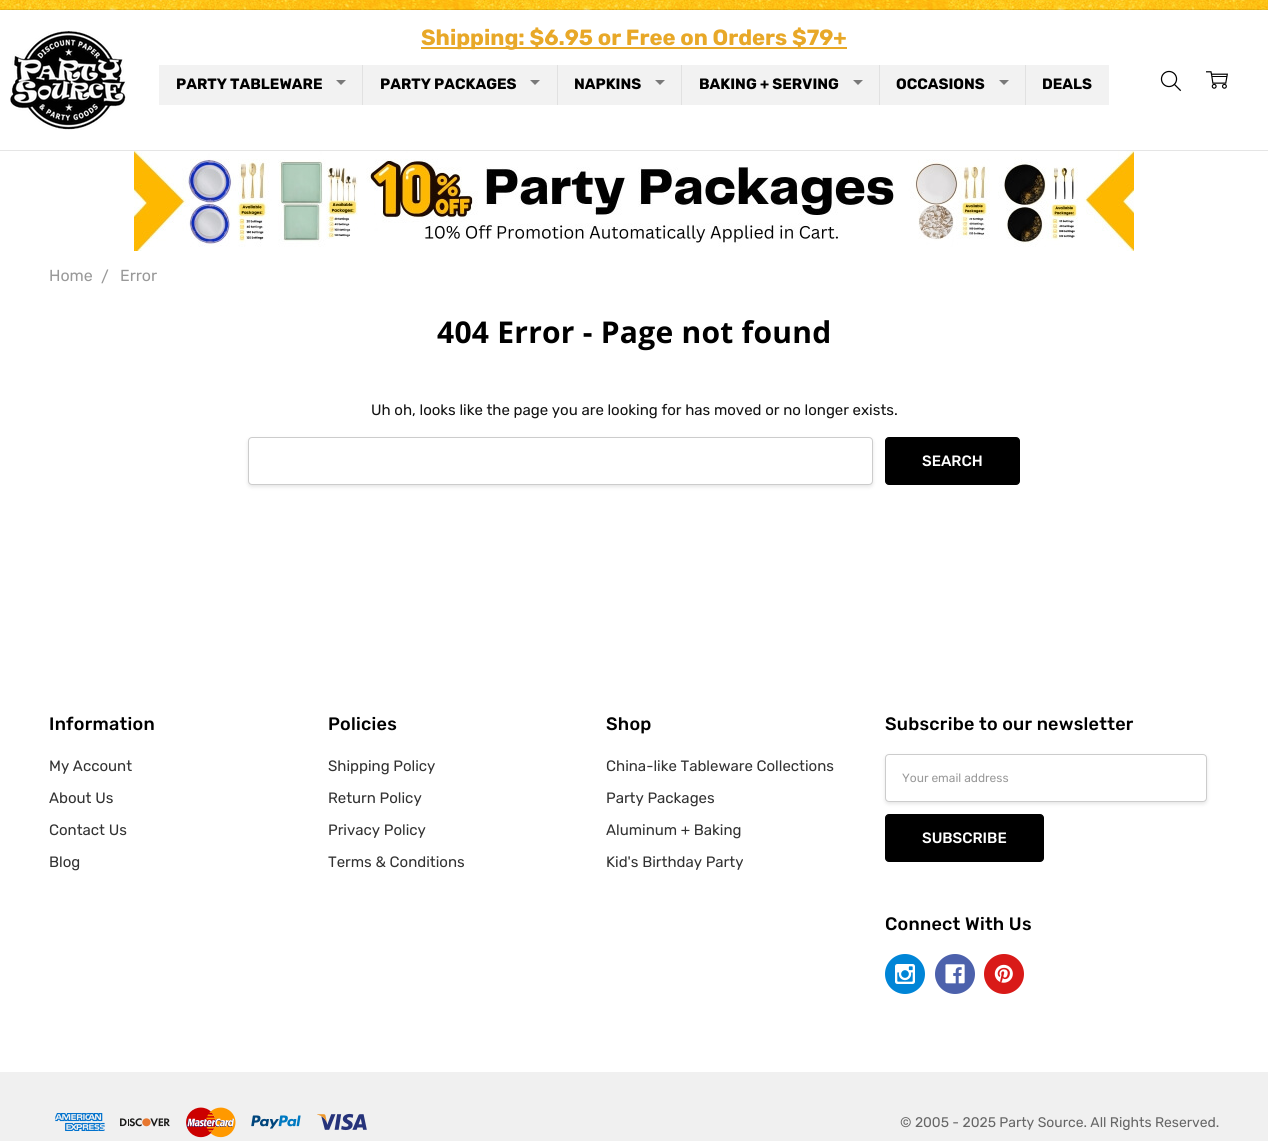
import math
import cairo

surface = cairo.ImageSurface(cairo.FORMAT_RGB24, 1268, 1141)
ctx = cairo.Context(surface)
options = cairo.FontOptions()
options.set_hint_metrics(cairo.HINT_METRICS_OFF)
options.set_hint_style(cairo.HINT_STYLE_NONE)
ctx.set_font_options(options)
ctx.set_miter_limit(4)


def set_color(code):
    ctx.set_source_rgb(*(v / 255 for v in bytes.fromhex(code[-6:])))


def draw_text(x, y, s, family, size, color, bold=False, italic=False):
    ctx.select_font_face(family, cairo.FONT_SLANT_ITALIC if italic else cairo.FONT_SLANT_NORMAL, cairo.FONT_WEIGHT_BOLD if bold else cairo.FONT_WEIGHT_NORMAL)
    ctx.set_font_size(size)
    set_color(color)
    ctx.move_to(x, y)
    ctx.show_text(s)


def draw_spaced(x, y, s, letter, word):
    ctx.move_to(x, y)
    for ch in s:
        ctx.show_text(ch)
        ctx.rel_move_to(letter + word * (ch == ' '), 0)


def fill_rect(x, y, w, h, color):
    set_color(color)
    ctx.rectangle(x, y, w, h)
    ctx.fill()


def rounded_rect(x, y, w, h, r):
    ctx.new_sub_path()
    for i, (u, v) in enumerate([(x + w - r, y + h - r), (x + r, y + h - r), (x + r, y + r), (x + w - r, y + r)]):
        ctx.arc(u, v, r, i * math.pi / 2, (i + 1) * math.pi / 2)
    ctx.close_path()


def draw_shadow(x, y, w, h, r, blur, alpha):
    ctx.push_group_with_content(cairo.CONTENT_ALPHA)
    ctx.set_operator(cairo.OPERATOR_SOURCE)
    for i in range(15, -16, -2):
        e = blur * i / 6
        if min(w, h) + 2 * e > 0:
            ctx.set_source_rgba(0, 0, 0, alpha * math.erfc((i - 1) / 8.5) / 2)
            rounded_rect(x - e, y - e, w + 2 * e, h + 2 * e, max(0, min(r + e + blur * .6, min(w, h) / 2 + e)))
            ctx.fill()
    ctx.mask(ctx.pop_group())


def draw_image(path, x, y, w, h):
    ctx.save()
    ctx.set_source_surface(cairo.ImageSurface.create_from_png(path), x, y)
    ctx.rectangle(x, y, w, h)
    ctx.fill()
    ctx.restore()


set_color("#ffffff")
ctx.paint()
fill_rect(0, 150, 1268, 1, "#e5e5e5")
draw_image("assets/img1.png", 0, 0, 1268, 10)
ctx.set_source_rgba(0, 0, 0, 0.1)
ctx.rectangle(0, 9, 1268, 1)
ctx.fill()
draw_image("assets/img2.png", 10, 30, 117, 100)
fill_rect(421, 47, 426, 2, "#e8a828")
draw_text(421, 45, "Shipping: $6.95 or Free on Orders $79+", "Rubik", 22, "#e8a828", bold=True)
draw_image("assets/img3.png", 1160, 70, 22, 22)
draw_image("assets/img4.png", 1206, 71, 22, 18)
fill_rect(159, 65, 950, 40, "#f2f2f2")
fill_rect(362, 65, 1, 40, "#e1e1e1")
draw_text(176, 89, "PARTY TABLEWARE", "Rubik", 15, "#000000", bold=True)
set_color("#797979")
ctx.new_path()
ctx.move_to(336, 80)
ctx.line_to(346, 80)
ctx.line_to(341, 85)
ctx.close_path()
ctx.fill()
fill_rect(557, 65, 1, 40, "#e1e1e1")
draw_text(380, 89, "PARTY PACKAGES", "Rubik", 15, "#000000", bold=True)
set_color("#797979")
ctx.new_path()
ctx.move_to(530, 80)
ctx.line_to(540, 80)
ctx.line_to(535, 85)
ctx.close_path()
ctx.fill()
fill_rect(681, 65, 1, 40, "#e1e1e1")
draw_text(574, 89, "NAPKINS", "Rubik", 15, "#000000", bold=True)
set_color("#797979")
ctx.new_path()
ctx.move_to(655, 80)
ctx.line_to(665, 80)
ctx.line_to(660, 85)
ctx.close_path()
ctx.fill()
fill_rect(879, 65, 1, 40, "#e1e1e1")
draw_text(699, 89, "BAKING + SERVING", "Rubik", 15, "#000000", bold=True)
set_color("#797979")
ctx.new_path()
ctx.move_to(853, 80)
ctx.line_to(863, 80)
ctx.line_to(858, 85)
ctx.close_path()
ctx.fill()
fill_rect(1025, 65, 1, 40, "#e1e1e1")
draw_text(896, 89, "OCCASIONS", "Rubik", 15, "#000000", bold=True)
set_color("#797979")
ctx.new_path()
ctx.move_to(999, 80)
ctx.line_to(1009, 80)
ctx.line_to(1004, 85)
ctx.close_path()
ctx.fill()
draw_text(1042, 89, "DEALS", "Rubik", 15, "#000000", bold=True)
draw_image("assets/img5.png", 134, 151, 1000, 100)
draw_text(49, 281, "Home", "Rubik", 16, "#999999")
draw_text(101, 282, "/", "Rubik", 16, "#999999")
draw_text(120, 281, "Error", "Rubik", 16, "#999999")
ctx.select_font_face("Open Sans", cairo.FONT_SLANT_NORMAL, cairo.FONT_WEIGHT_BOLD)
ctx.set_font_size(30)
set_color("#000000")
draw_spaced(437, 343, "404 Error - Page not found", 0.25, 0)
draw_text(371, 415, "Uh oh, looks like the page you are looking for has moved or no longer exists.", "Rubik", 15, "#131313")
set_color("#000000")
draw_shadow(248, 439, 625, 48, 4, 2, 0.1)
set_color("#ffffff")
rounded_rect(248.5, 437.5, 624, 47, 3.5)
ctx.fill_preserve()
set_color("#cccccc")
ctx.set_line_width(1)
ctx.stroke()
set_color("#000000")
rounded_rect(885.5, 437.5, 134, 47, 3.5)
ctx.fill_preserve()
ctx.stroke()
draw_text(922, 466, "SEARCH", "Rubik Medium", 15, "#ffffff")
ctx.set_font_size(18)
set_color("#000000")
draw_spaced(49, 730, "Information", 0.25, 0)
draw_text(49, 771, "My Account", "Rubik", 15, "#323232")
draw_text(49, 803, "About Us", "Rubik", 15, "#323232")
draw_text(49, 835, "Contact Us", "Rubik", 15, "#323232")
draw_text(49, 867, "Blog", "Rubik", 15, "#323232")
ctx.select_font_face("Rubik Medium")
ctx.set_font_size(18)
set_color("#000000")
draw_spaced(328, 730, "Policies", 0.25, 0)
draw_text(328, 771, "Shipping Policy", "Rubik", 15, "#323232")
draw_text(328, 803, "Return Policy", "Rubik", 15, "#323232")
draw_text(328, 835, "Privacy Policy", "Rubik", 15, "#323232")
draw_text(328, 867, "Terms & Conditions", "Rubik", 15, "#323232")
ctx.select_font_face("Rubik Medium")
ctx.set_font_size(18)
set_color("#000000")
draw_spaced(606, 730, "Shop", 0.25, 0)
draw_text(606, 771, "China-like Tableware Collections", "Rubik", 15, "#323232")
draw_text(606, 803, "Party Packages", "Rubik", 15, "#323232")
draw_text(606, 835, "Aluminum + Baking", "Rubik", 15, "#323232")
draw_text(606, 867, "Kid's Birthday Party", "Rubik", 15, "#323232")
ctx.select_font_face("Rubik Medium")
ctx.set_font_size(18)
set_color("#000000")
draw_spaced(885, 730, "Subscribe to our newsletter", 0.25, 0)
set_color("#000000")
draw_shadow(885, 756, 322, 48, 4, 2, 0.1)
set_color("#ffffff")
rounded_rect(885.5, 754.5, 321, 47, 3.5)
ctx.fill_preserve()
set_color("#cccccc")
ctx.stroke()
draw_text(902, 782, "Your email address", "Rubik", 12, "#999999")
set_color("#000000")
rounded_rect(885.5, 814.5, 158, 47, 3.5)
ctx.fill_preserve()
ctx.stroke()
draw_text(922, 843, "SUBSCRIBE", "Rubik Medium", 15, "#ffffff")
ctx.set_font_size(18)
set_color("#000000")
draw_spaced(885, 930, "Connect With Us", 0.25, 0)
set_color("#0085d7")
ctx.new_path()
ctx.arc(905, 974, 20, 0, 2 * math.pi)
ctx.fill()
draw_image("assets/img6.png", 895, 964, 20, 20)
set_color("#4c61ac")
ctx.arc(955, 974, 20, 0, 2 * math.pi)
ctx.fill()
draw_image("assets/img7.png", 945, 964, 20, 20)
set_color("#d91a18")
ctx.arc(1004, 974, 20, 0, 2 * math.pi)
ctx.fill()
draw_image("assets/img8.png", 994, 964, 19, 19)
fill_rect(0, 1072, 1268, 69, "#f0f0f0")
draw_image("assets/img9.png", 55, 1113, 50, 18)
draw_image("assets/img10.png", 120, 1118, 50, 9)
draw_image("assets/img11.png", 186, 1107, 50, 31)
draw_image("assets/img12.png", 251, 1115, 50, 14)
draw_image("assets/img13.png", 317, 1113, 50, 18)
draw_text(900, 1127, "© 2005 - 2025 Party Source. All Rights Reserved.", "Rubik", 13.9, "#666666")
surface.write_to_png("output.png")
